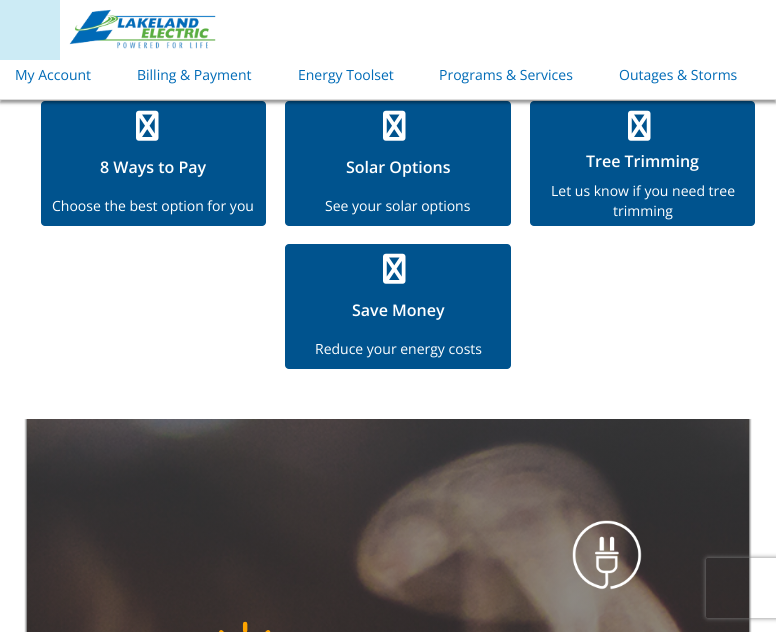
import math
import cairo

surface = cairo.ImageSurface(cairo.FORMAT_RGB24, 776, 632)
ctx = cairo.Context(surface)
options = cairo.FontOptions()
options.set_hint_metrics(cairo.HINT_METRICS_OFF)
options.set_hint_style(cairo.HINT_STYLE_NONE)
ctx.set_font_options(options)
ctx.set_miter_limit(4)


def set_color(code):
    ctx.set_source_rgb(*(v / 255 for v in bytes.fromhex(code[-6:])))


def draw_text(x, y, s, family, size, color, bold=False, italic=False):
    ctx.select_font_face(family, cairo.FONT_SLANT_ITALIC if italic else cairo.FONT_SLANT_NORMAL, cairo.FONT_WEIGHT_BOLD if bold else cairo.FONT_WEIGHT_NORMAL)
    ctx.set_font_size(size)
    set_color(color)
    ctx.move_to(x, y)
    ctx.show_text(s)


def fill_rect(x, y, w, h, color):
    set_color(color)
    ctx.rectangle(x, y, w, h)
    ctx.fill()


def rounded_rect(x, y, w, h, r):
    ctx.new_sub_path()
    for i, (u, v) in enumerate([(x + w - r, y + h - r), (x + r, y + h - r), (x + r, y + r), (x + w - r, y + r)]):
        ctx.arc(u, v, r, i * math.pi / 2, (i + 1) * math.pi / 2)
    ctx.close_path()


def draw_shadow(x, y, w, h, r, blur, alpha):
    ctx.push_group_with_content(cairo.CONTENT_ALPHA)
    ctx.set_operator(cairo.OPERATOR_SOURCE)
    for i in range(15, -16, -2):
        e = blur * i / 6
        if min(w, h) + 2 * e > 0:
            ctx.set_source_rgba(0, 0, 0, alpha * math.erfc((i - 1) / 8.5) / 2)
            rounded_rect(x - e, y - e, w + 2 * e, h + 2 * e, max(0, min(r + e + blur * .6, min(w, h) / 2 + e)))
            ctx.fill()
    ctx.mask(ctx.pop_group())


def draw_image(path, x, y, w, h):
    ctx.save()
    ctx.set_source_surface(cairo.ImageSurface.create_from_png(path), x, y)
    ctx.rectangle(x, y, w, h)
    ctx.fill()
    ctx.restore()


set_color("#ffffff")
ctx.paint()
set_color("#00538e")
rounded_rect(41, 101, 225, 125, 4)
ctx.fill()
rounded_rect(285, 101, 226, 125, 4)
ctx.fill()
rounded_rect(530, 101, 225, 125, 4)
ctx.fill()
set_color("#000000")
draw_shadow(0, 3, 776, 100, 0, 1.5, 0.4)
fill_rect(0, 0, 776, 99, "#ffffff")
fill_rect(0, 99, 776, 1, "#dddddd")
fill_rect(0, 0, 60, 60, "#ccebf5")
draw_image("assets/img1.png", 69, 9, 147, 40)
draw_text(15, 80, "My Account", "Open Sans", 14, "#006bb7")
draw_text(137, 80, "Billing & Payment", "Open Sans", 14, "#006bb7")
draw_text(298, 80, "Energy Toolset", "Open Sans", 14, "#006bb7")
draw_text(439, 80, "Programs & Services", "Open Sans", 14, "#006bb7")
draw_text(619, 80, "Outages & Storms", "Open Sans", 14, "#006bb7")
draw_image("assets/img2.png", 136, 110, 23, 31)
draw_text(100, 173, "8 Ways to Pay", "Open Sans SemiBold", 16, "#ffffff")
draw_text(52, 211, "Choose the best option for you", "Open Sans", 14, "#ffffff")
draw_image("assets/img2.png", 383, 110, 23, 31)
draw_text(346, 173, "Solar Options", "Open Sans SemiBold", 16, "#ffffff")
draw_text(325, 211, "See your solar options", "Open Sans", 14, "#ffffff")
draw_image("assets/img2.png", 628, 110, 23, 31)
draw_text(586, 167, "Tree Trimming", "Open Sans SemiBold", 16, "#ffffff")
draw_text(551, 196, "Let us know if you need tree", "Open Sans", 14, "#ffffff")
draw_text(613, 216, "trimming", "Open Sans", 14, "#ffffff")
set_color("#00538e")
rounded_rect(285, 244, 226, 125, 4)
ctx.fill()
draw_image("assets/img2.png", 383, 253, 23, 31)
draw_text(352, 316, "Save Money", "Open Sans SemiBold", 16, "#ffffff")
draw_text(315, 354, "Reduce your energy costs", "Open Sans", 14, "#ffffff")
draw_image("assets/img3.png", 24, 419, 728, 213)
ctx.save()
ctx.set_fill_rule(cairo.FILL_RULE_EVEN_ODD)
ctx.new_path()
ctx.move_to(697, 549)
ctx.line_to(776, 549)
ctx.line_to(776, 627)
ctx.line_to(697, 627)
ctx.close_path()
ctx.move_to(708, 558)
ctx.line_to(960, 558)
ctx.curve_to(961, 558, 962, 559, 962, 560)
ctx.line_to(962, 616)
ctx.curve_to(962, 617, 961, 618, 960, 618)
ctx.line_to(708, 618)
ctx.curve_to(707, 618, 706, 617, 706, 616)
ctx.line_to(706, 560)
ctx.curve_to(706, 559, 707, 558, 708, 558)
ctx.close_path()
ctx.clip()
set_color("#808080")
draw_shadow(706, 558, 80, 60, 2, 2.5, 1)
ctx.restore()
surface.write_to_png("output.png")
